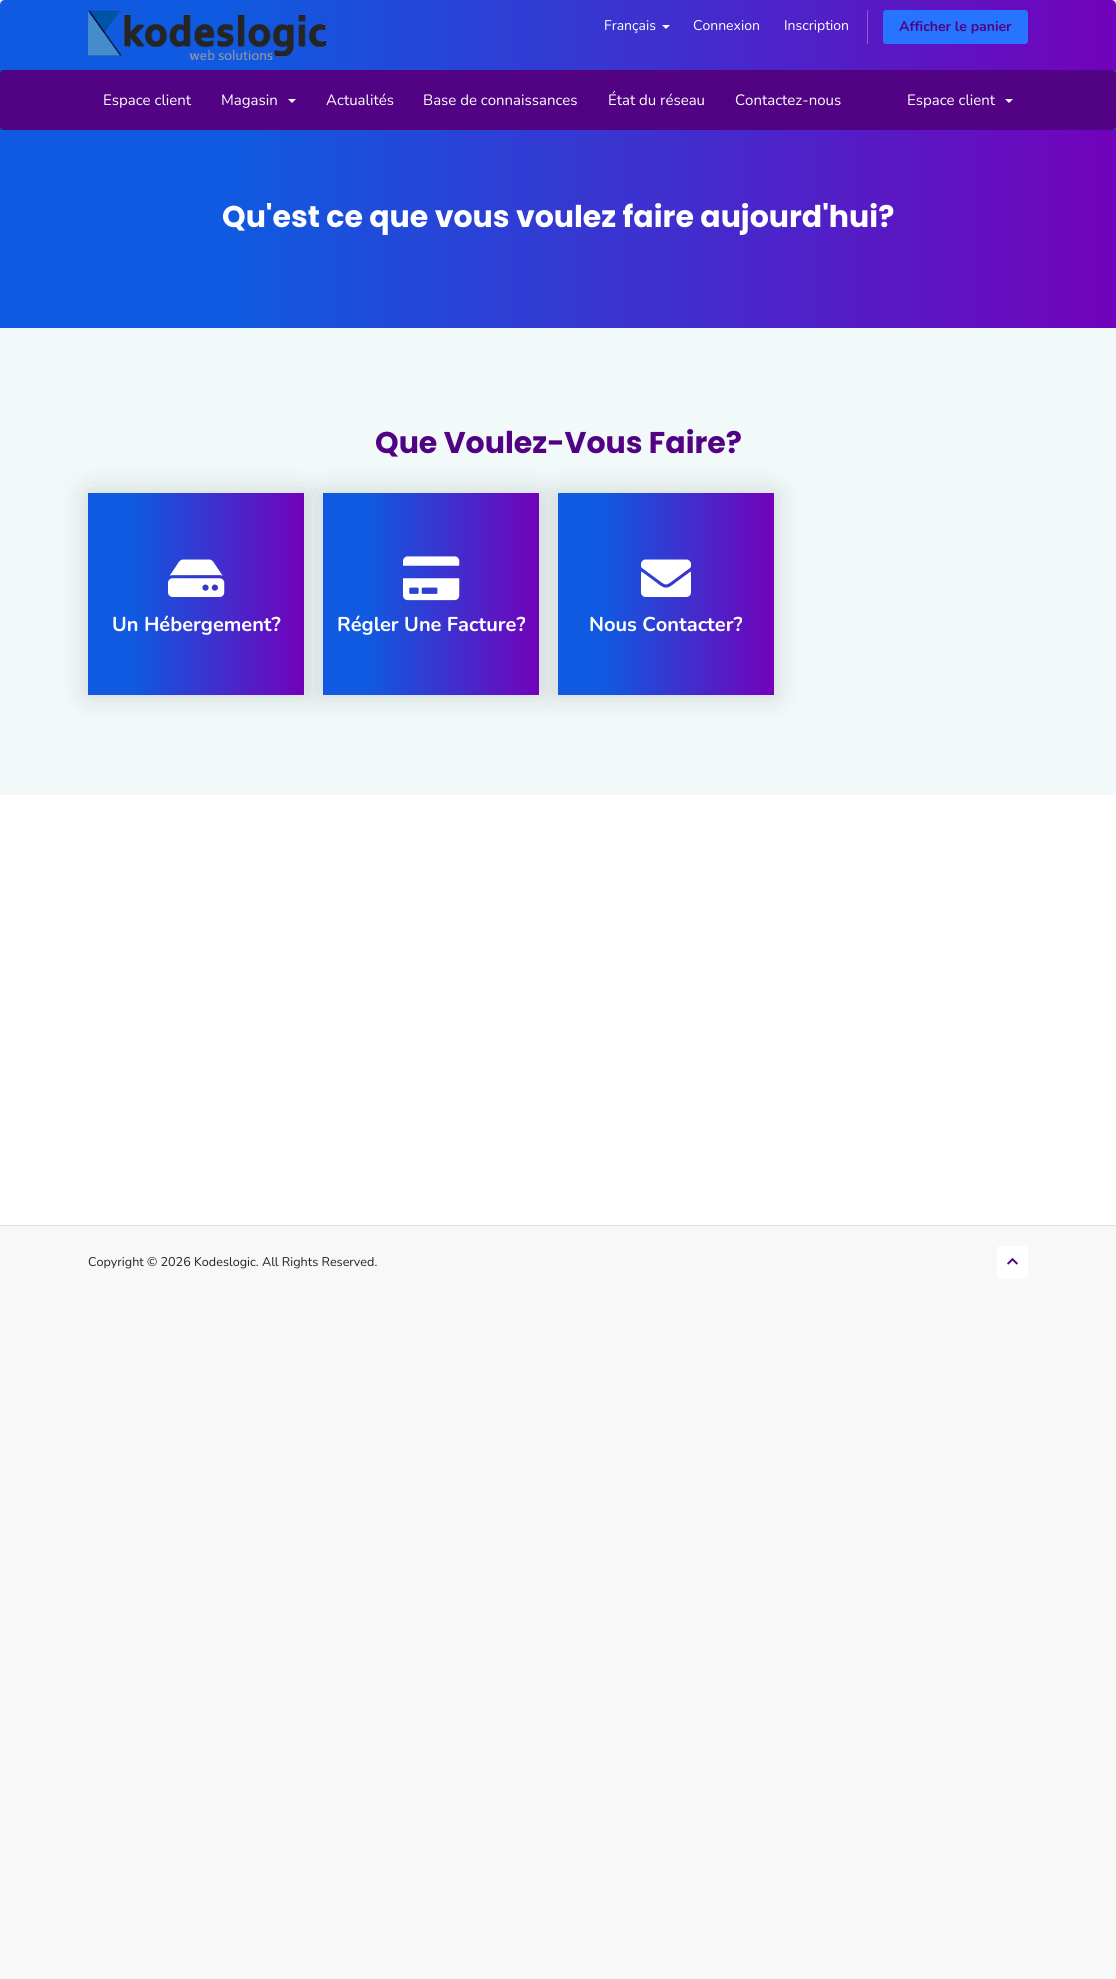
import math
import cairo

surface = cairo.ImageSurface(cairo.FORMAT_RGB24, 1116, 1979)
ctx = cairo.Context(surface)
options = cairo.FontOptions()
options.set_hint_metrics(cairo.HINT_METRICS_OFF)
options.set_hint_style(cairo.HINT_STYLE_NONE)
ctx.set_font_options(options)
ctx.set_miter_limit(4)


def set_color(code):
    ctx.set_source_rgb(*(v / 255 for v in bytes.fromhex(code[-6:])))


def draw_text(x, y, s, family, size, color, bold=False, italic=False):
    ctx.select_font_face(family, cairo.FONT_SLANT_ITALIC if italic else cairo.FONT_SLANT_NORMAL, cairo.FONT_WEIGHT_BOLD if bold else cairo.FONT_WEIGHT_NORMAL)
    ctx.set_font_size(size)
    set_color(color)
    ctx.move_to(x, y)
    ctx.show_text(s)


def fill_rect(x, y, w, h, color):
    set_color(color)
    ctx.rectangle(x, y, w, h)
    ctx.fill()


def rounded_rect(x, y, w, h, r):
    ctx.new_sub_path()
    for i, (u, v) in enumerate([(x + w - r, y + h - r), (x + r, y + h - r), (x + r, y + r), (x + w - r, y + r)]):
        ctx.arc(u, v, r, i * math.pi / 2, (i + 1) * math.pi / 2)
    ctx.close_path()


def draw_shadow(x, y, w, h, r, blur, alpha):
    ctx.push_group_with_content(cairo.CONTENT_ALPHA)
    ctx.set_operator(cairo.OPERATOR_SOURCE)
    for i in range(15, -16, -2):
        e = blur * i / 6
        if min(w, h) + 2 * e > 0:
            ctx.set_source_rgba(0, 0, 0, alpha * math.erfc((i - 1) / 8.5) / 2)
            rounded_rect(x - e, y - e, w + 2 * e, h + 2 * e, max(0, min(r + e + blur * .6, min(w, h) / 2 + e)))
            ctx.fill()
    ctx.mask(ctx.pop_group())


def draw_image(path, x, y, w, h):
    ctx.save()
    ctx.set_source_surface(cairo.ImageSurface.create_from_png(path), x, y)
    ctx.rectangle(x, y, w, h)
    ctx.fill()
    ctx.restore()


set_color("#f8f8f8")
ctx.paint()
gradient = cairo.LinearGradient(0, 35, 1116, 35)
gradient.add_color_stop_rgba(0, 0.059, 0.353, 0.878, 1)
gradient.add_color_stop_rgba(0.21, 0.059, 0.353, 0.878, 1)
gradient.add_color_stop_rgba(1, 0.447, 0.008, 0.733, 1)
ctx.set_source(gradient)
ctx.new_path()
ctx.move_to(5, 0)
ctx.line_to(1111, 0)
ctx.curve_to(1114, 0, 1116, 2, 1116, 5)
ctx.line_to(1116, 70)
ctx.line_to(0, 70)
ctx.line_to(0, 5)
ctx.curve_to(0, 2, 2, 0, 5, 0)
ctx.close_path()
ctx.fill()
draw_image("assets/img1.png", 88, 10, 238, 50)
draw_text(604, 30, "Français", "Nunito", 14, "#ffffff")
ctx.new_path()
ctx.move_to(662, 25)
ctx.line_to(670, 25)
ctx.line_to(666, 29)
ctx.close_path()
ctx.fill()
draw_text(693, 30, "Connexion", "Nunito", 14, "#ffffff")
draw_text(784, 30, "Inscription", "Nunito", 14, "#ffffff")
fill_rect(867, 10, 1, 34, "#895fd6")
set_color("#2775ff")
rounded_rect(883, 10, 145, 34, 3)
ctx.fill()
draw_text(899, 31, "Afficher le panier", "Nunito", 14, "#510384", bold=True)
fill_rect(0, 70, 1116, 60, "#006687")
set_color("#510384")
rounded_rect(0, 70, 1116, 60, 4)
ctx.fill()
draw_text(103, 105, "Espace client", "Nunito", 15, "#ffffff")
draw_text(221, 105, "Magasin", "Nunito", 15, "#ffffff")
ctx.new_path()
ctx.move_to(288, 99)
ctx.line_to(296, 99)
ctx.line_to(292, 103)
ctx.close_path()
ctx.fill()
draw_text(326, 105, "Actualités", "Nunito", 15, "#ffffff")
draw_text(423, 105, "Base de connaissances", "Nunito", 15, "#ffffff")
draw_text(608, 105, "État du réseau", "Nunito", 15, "#ffffff")
draw_text(735, 105, "Contactez-nous", "Nunito", 15, "#ffffff")
draw_text(907, 105, "Espace client", "Nunito", 15, "#ffffff")
ctx.new_path()
ctx.move_to(1005, 99)
ctx.line_to(1013, 99)
ctx.line_to(1009, 103)
ctx.close_path()
ctx.fill()
gradient = cairo.LinearGradient(0, 229, 1116, 229)
gradient.add_color_stop_rgba(0, 0.059, 0.353, 0.878, 1)
gradient.add_color_stop_rgba(0.21, 0.059, 0.353, 0.878, 1)
gradient.add_color_stop_rgba(1, 0.447, 0.008, 0.733, 1)
ctx.set_source(gradient)
ctx.rectangle(0, 130, 1116, 198)
ctx.fill()
draw_text(222, 227, "Qu'est ce que vous voulez faire aujourd'hui?", "Poppins", 30, "#ffffff", bold=True)
fill_rect(0, 328, 1116, 467, "#f1f9f9")
draw_text(375, 453, "Que Voulez-Vous Faire?", "Poppins", 30, "#510384", bold=True)
set_color("#000000")
draw_shadow(88, 493, 216, 202, 0, 15, 0.15)
gradient = cairo.LinearGradient(88, 594, 304, 594)
gradient.add_color_stop_rgba(0, 0.059, 0.353, 0.878, 1)
gradient.add_color_stop_rgba(0.21, 0.059, 0.353, 0.878, 1)
gradient.add_color_stop_rgba(1, 0.447, 0.008, 0.733, 1)
ctx.set_source(gradient)
ctx.rectangle(88, 493, 216, 202)
ctx.fill()
draw_image("assets/img2.png", 168, 559, 57, 38)
draw_text(112, 631, "Un Hébergement?", "Nunito", 20, "#ffffff", bold=True)
set_color("#000000")
draw_shadow(323, 493, 216, 202, 0, 15, 0.15)
gradient = cairo.LinearGradient(323, 594, 539, 594)
gradient.add_color_stop_rgba(0, 0.059, 0.353, 0.878, 1)
gradient.add_color_stop_rgba(0.21, 0.059, 0.353, 0.878, 1)
gradient.add_color_stop_rgba(1, 0.447, 0.008, 0.733, 1)
ctx.set_source(gradient)
ctx.rectangle(323, 493, 216, 202)
ctx.fill()
draw_image("assets/img3.png", 403, 556, 57, 45)
draw_text(337, 631, "Régler Une Facture?", "Nunito", 20, "#ffffff", bold=True)
set_color("#000000")
draw_shadow(558, 493, 216, 202, 0, 15, 0.15)
gradient = cairo.LinearGradient(558, 594, 774, 594)
gradient.add_color_stop_rgba(0, 0.059, 0.353, 0.878, 1)
gradient.add_color_stop_rgba(0.21, 0.059, 0.353, 0.878, 1)
gradient.add_color_stop_rgba(1, 0.447, 0.008, 0.733, 1)
ctx.set_source(gradient)
ctx.rectangle(558, 493, 216, 202)
ctx.fill()
draw_image("assets/img4.png", 641, 559, 50, 38)
draw_text(589, 631, "Nous Contacter?", "Nunito", 20, "#ffffff", bold=True)
fill_rect(0, 795, 1116, 430, "#ffffff")
fill_rect(0, 1225, 1116, 1, "#dddddd")
draw_text(88, 1266, "Copyright © 2026 Kodeslogic. All Rights Reserved.", "Nunito", 12.6, "#222222")
set_color("#ffffff")
rounded_rect(997, 1246, 31, 33, 3)
ctx.fill()
draw_image("assets/img5.png", 1007, 1258, 11, 7)
surface.write_to_png("output.png")
